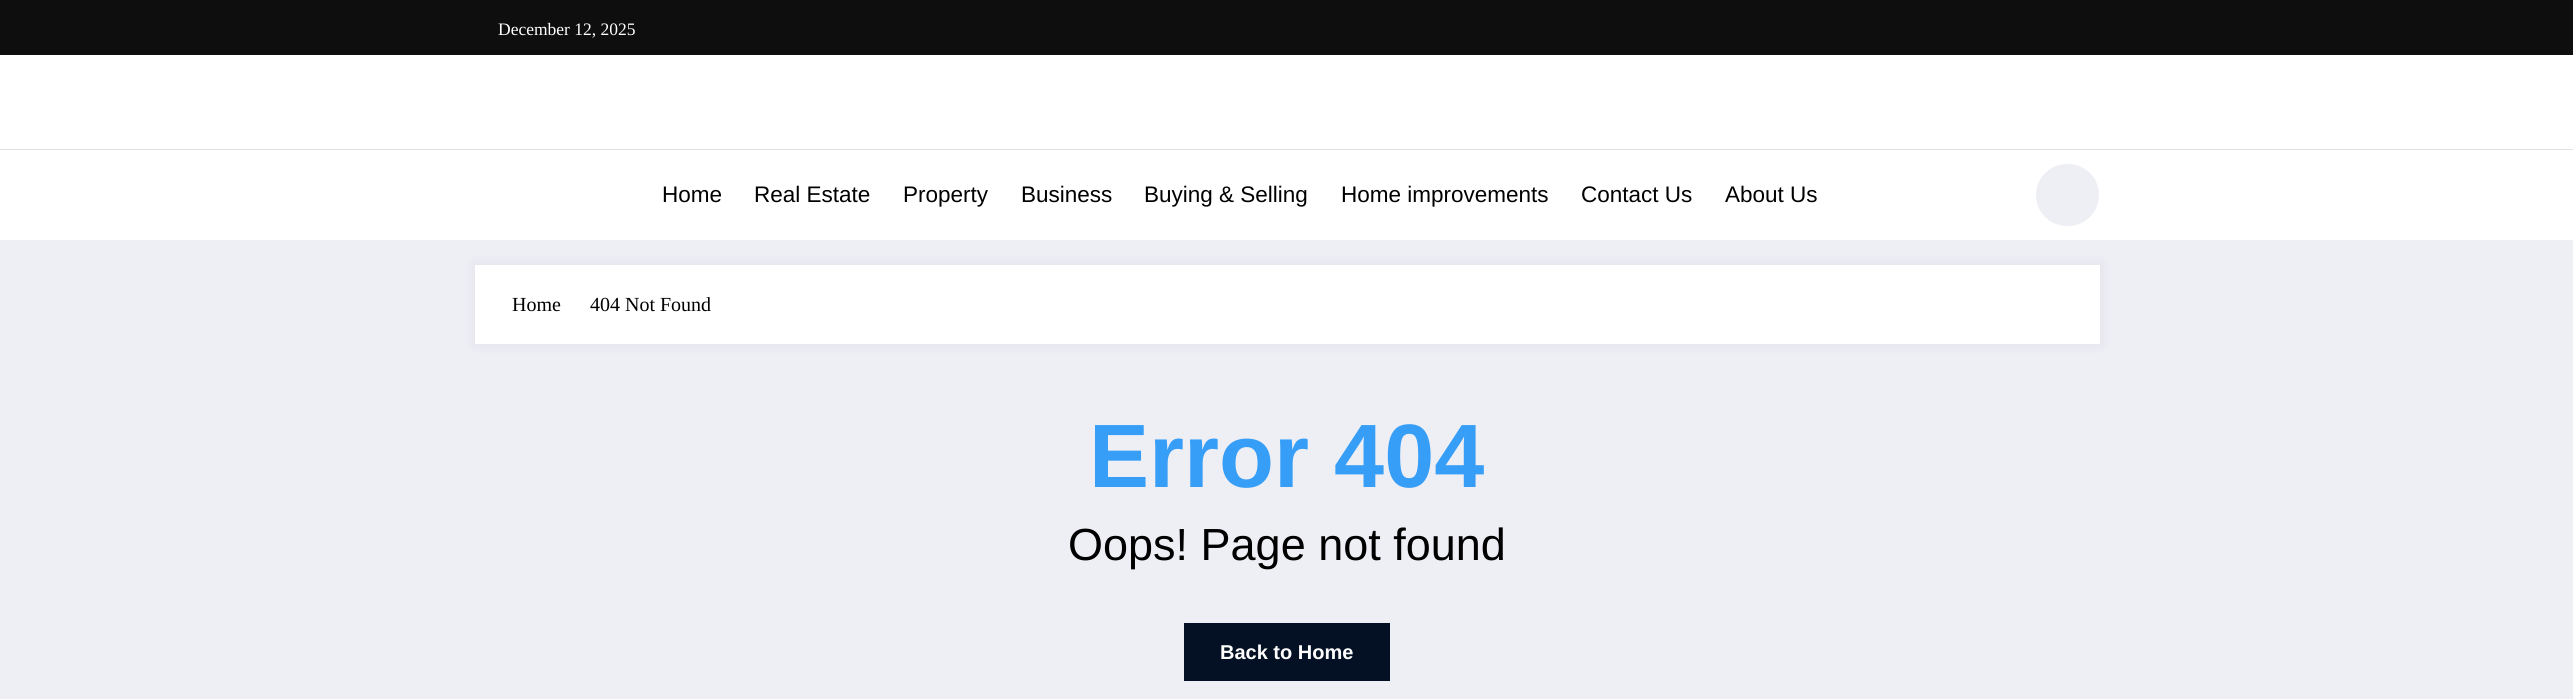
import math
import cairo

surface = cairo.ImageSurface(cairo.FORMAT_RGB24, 2573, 699)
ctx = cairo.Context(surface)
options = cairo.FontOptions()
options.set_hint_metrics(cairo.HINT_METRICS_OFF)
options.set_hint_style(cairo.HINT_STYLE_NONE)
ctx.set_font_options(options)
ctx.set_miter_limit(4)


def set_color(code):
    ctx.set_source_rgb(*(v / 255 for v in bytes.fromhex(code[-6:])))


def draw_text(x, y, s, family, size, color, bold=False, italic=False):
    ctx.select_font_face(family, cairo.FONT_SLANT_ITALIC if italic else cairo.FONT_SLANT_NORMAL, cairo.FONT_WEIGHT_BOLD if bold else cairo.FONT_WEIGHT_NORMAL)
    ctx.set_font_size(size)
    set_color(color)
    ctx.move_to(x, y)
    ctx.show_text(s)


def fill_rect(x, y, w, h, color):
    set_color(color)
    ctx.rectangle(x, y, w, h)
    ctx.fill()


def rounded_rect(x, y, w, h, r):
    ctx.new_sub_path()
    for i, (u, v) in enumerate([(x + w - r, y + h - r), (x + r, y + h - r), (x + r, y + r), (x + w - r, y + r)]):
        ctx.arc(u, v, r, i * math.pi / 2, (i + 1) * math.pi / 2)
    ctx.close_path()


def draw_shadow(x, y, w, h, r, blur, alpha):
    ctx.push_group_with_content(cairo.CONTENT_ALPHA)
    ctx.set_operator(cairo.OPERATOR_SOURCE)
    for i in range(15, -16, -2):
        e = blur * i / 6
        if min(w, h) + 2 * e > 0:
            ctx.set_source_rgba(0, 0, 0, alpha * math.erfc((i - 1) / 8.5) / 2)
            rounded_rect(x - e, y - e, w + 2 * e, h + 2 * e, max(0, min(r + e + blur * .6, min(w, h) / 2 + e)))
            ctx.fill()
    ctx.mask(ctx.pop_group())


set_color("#eeeef5")
ctx.paint()
fill_rect(0, 0, 2573, 55, "#0e0e0e")
draw_text(498, 35, "December 12, 2025", "Liberation Serif", 17.5, "#ffffff")
fill_rect(0, 55, 2573, 185, "#ffffff")
fill_rect(0, 149, 2573, 1, "#e1e1e1")
draw_text(662, 202, "Home", "Liberation Sans", 22.5, "#000000")
draw_text(754, 202, "Real Estate", "Liberation Sans", 22.5, "#000000")
draw_text(903, 202, "Property", "Liberation Sans", 22.5, "#000000")
draw_text(1021, 202, "Business", "Liberation Sans", 22.5, "#000000")
draw_text(1144, 202, "Buying & Selling", "Liberation Sans", 22.5, "#000000")
draw_text(1341, 202, "Home improvements", "Liberation Sans", 22.5, "#000000")
draw_text(1581, 202, "Contact Us", "Liberation Sans", 22.5, "#000000")
draw_text(1725, 202, "About Us", "Liberation Sans", 22.5, "#000000")
set_color("#eeeef5")
rounded_rect(2036, 164, 63, 62, 31)
ctx.fill()
set_color("#171723")
draw_shadow(473, 263, 1630, 83, 0, 5, 0.05)
fill_rect(475, 265, 1625, 79, "#ffffff")
draw_text(512, 311, "Home", "Liberation Serif", 20, "#000000")
draw_text(590, 311, "404 Not Found", "Liberation Serif", 20, "#000000")
draw_text(1089, 487, "Error 404", "Liberation Sans", 90, "#369ef6", bold=True)
draw_text(1068, 560, "Oops! Page not found", "Liberation Sans", 45, "#000000")
fill_rect(1184, 623, 206, 58, "#041124")
draw_text(1220, 659, "Back to Home", "Liberation Sans", 20, "#ffffff", bold=True)
surface.write_to_png("output.png")
